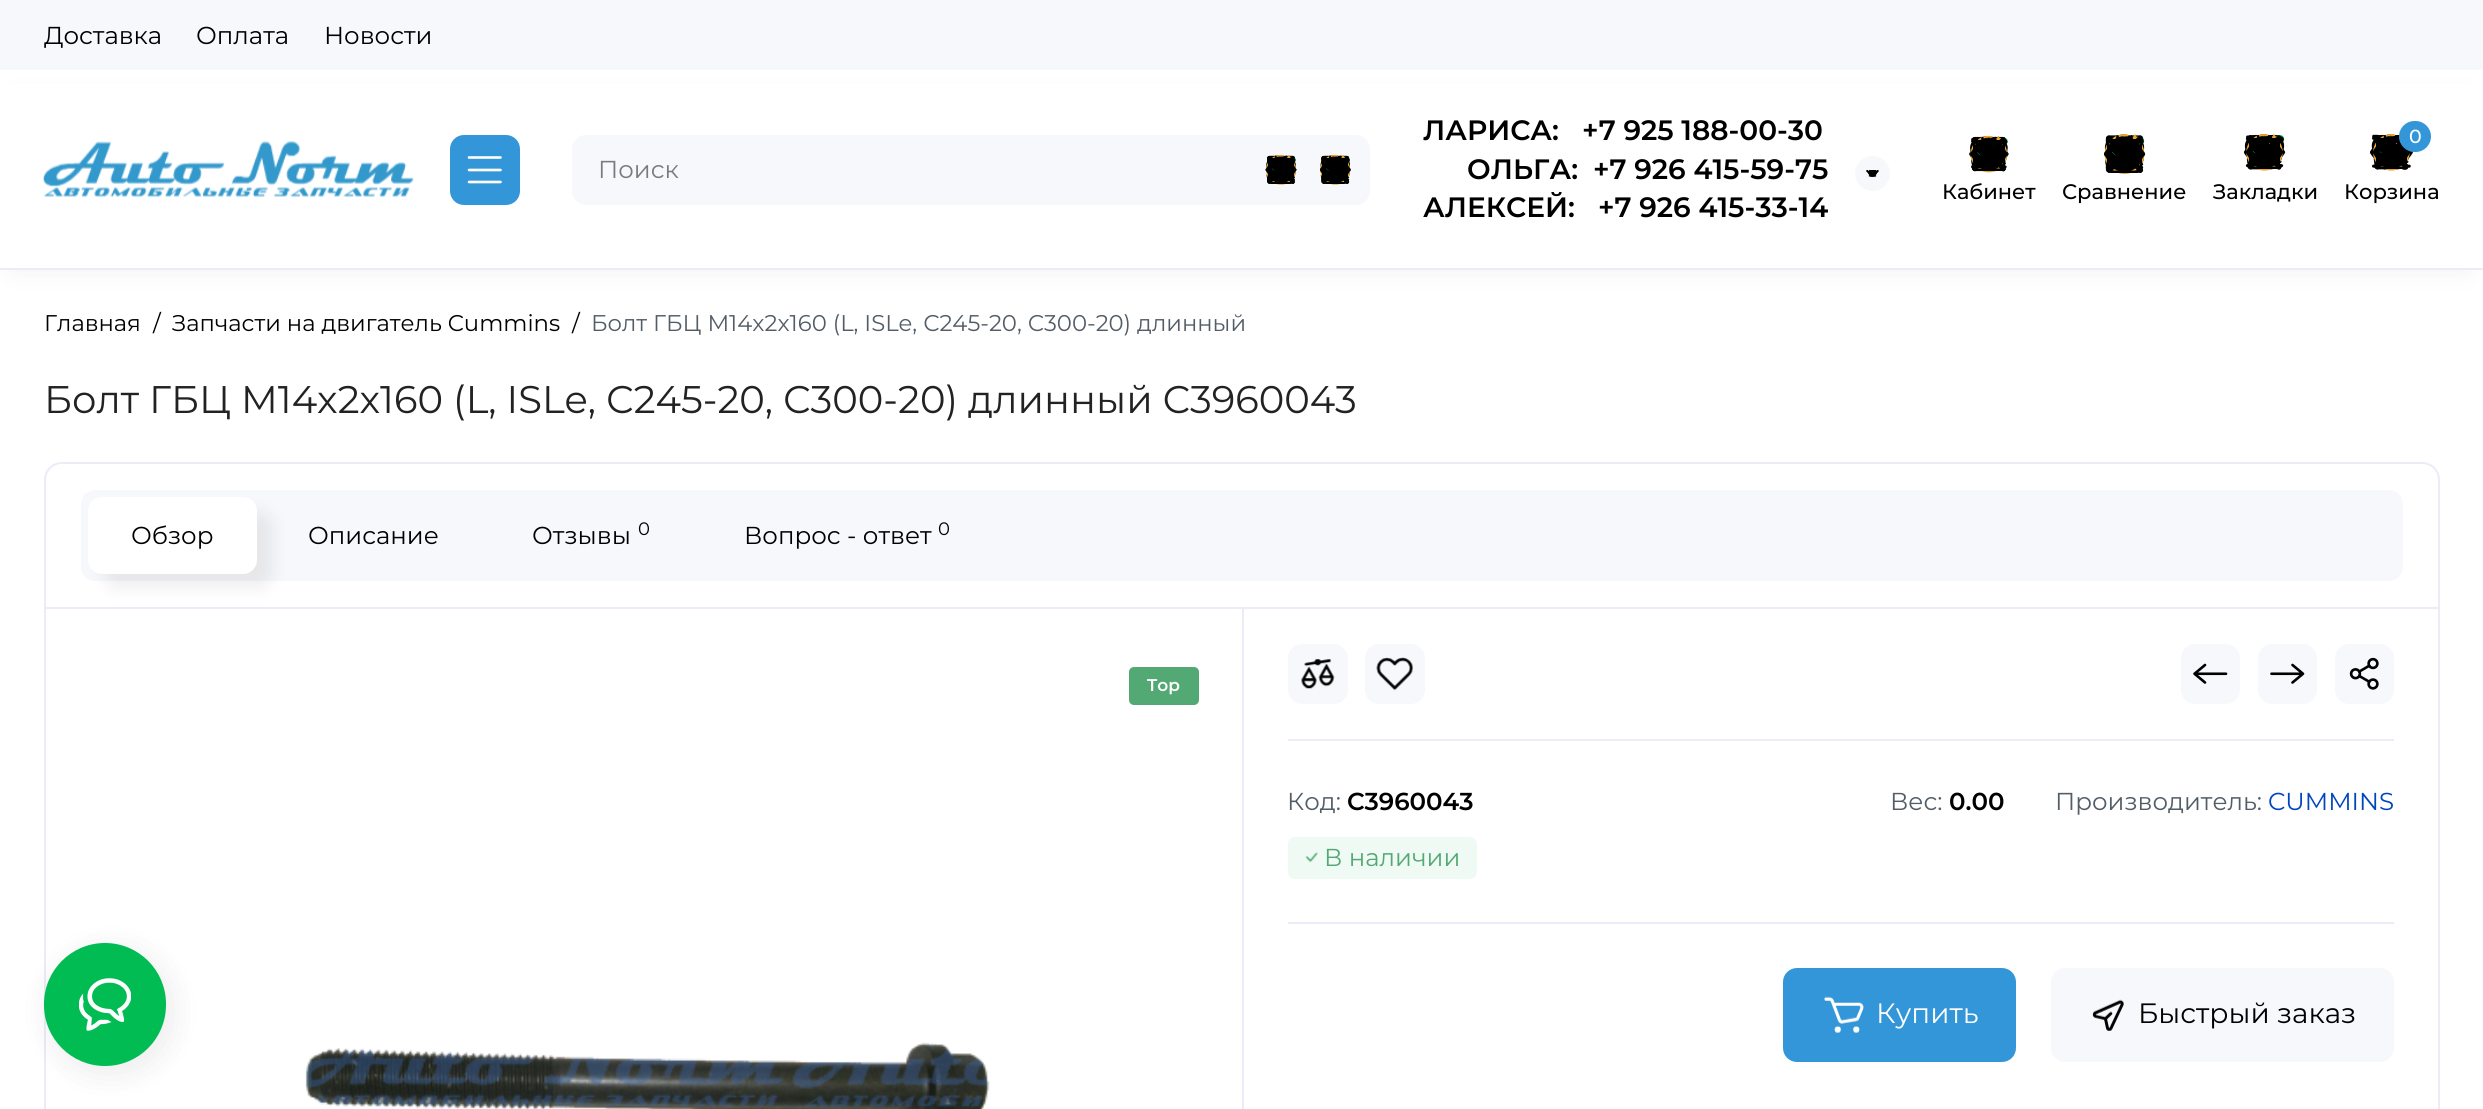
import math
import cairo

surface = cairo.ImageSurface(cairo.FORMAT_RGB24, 2483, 1109)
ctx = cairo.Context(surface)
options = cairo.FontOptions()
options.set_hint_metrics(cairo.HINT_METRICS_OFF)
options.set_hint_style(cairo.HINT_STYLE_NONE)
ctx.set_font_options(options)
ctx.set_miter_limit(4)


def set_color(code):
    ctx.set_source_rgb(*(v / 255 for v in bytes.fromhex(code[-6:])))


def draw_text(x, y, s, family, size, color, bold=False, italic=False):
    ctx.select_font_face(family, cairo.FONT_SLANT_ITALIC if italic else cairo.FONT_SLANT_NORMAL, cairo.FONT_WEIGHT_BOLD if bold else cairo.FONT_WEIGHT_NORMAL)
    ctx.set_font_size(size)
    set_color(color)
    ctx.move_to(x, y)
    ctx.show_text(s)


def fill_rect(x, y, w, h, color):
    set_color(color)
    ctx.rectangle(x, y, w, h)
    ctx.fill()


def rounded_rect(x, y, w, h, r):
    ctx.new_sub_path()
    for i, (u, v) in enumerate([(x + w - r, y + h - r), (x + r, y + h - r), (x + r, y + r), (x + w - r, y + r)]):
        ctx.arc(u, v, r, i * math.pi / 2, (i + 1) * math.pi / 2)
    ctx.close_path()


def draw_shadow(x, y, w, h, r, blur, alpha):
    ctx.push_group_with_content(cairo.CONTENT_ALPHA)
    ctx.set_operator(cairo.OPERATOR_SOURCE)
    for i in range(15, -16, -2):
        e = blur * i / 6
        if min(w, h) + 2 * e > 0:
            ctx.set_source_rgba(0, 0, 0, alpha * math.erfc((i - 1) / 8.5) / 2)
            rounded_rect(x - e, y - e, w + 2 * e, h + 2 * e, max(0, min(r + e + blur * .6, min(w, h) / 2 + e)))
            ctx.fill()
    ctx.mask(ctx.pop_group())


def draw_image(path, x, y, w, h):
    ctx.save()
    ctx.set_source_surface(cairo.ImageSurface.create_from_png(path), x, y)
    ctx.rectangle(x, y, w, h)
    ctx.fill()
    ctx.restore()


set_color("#ffffff")
ctx.paint()
fill_rect(0, 0, 2483, 70, "#f7f8fb")
draw_text(44, 44, "Доставка", "Montserrat", 24.5, "#000000")
draw_text(196, 44, "Оплата", "Montserrat", 24.5, "#000000")
draw_text(324, 44, "Новости", "Montserrat", 24.5, "#000000")
set_color("#000000")
draw_shadow(14, 98, 2455, 172, 0, 14, 0.06)
fill_rect(0, 84, 2483, 184, "#ffffff")
fill_rect(0, 268, 2483, 2, "#eaedf7")
draw_image("assets/img1.png", 43, 141, 371, 56)
set_color("#3296d9")
rounded_rect(450, 135, 70, 70, 14)
ctx.fill()
ctx.new_path()
ctx.move_to(469, 157.5)
ctx.line_to(500.5, 157.5)
ctx.move_to(469, 170)
ctx.line_to(500.5, 170)
ctx.move_to(469, 182)
ctx.line_to(500.5, 182)
set_color("#ffffff")
ctx.set_line_width(2.6)
ctx.set_line_cap(cairo.LINE_CAP_ROUND)
ctx.set_line_join(cairo.LINE_JOIN_ROUND)
ctx.stroke()
set_color("#f7f8fb")
ctx.new_path()
ctx.move_to(586, 135)
ctx.line_to(1253, 135)
ctx.line_to(1253, 205)
ctx.line_to(586, 205)
ctx.curve_to(578.5, 205, 572, 198.5, 572, 191)
ctx.line_to(572, 149)
ctx.curve_to(572, 141.5, 578.5, 135, 586, 135)
ctx.close_path()
ctx.fill()
draw_text(598, 178, "Поиск", "Montserrat", 24.5, "#757c83")
fill_rect(1253, 135, 56, 70, "#f7f8fb")
draw_image("assets/img2.png", 1265, 154, 32, 31)
ctx.new_path()
ctx.move_to(1309, 135)
ctx.line_to(1356, 135)
ctx.curve_to(1363.5, 135, 1370, 141.5, 1370, 149)
ctx.line_to(1370, 191)
ctx.curve_to(1370, 198.5, 1363.5, 205, 1356, 205)
ctx.line_to(1309, 205)
ctx.close_path()
ctx.fill()
draw_image("assets/img3.png", 1320, 154, 31, 31)
draw_text(1423, 140, "ЛАРИСА:   +7 925 188-00-30", "Montserrat SemiBold", 28, "#000000")
draw_text(1467, 179, "ОЛЬГА:", "Montserrat SemiBold", 28, "#000000")
draw_text(1593, 179, "+7 926 415-59-75", "Montserrat SemiBold", 28, "#000000")
set_color("#f7f8fb")
ctx.new_path()
ctx.arc(1872.5, 173.5, 17.5, 0, 2 * math.pi)
ctx.fill()
draw_image("assets/img4.png", 1866, 170, 13, 7)
draw_text(1423, 217, "АЛЕКСЕЙ:   +7 926 415-33-14", "Montserrat SemiBold", 28, "#000000")
draw_image("assets/img5.png", 2370, 134, 43, 37)
set_color("#3296d9")
rounded_rect(2399, 121, 32, 31, 15.5)
ctx.fill()
draw_text(2409, 143, "0", "Montserrat Medium", 19, "#ffffff")
draw_text(2344, 199, "Корзина", "Montserrat Medium", 21, "#000000")
draw_image("assets/img6.png", 1969, 135, 40, 38)
draw_text(1942, 199, "Кабинет", "Montserrat Medium", 21, "#000000")
draw_image("assets/img7.png", 2104, 134, 42, 40)
draw_text(2062, 199, "Сравнение", "Montserrat Medium", 21, "#000000")
draw_image("assets/img8.png", 2244, 134, 42, 37)
draw_text(2213, 199, "Закладки", "Montserrat Medium", 21, "#000000")
draw_text(44, 331, "Главная", "Montserrat", 22.75, "#000000")
draw_text(153, 331, "/", "Montserrat", 22.75, "#000000")
draw_text(172, 331, "Запчасти на двигатель Cummins", "Montserrat", 22.75, "#000000")
draw_text(572, 331, "/", "Montserrat", 22.75, "#000000")
draw_text(591, 331, "Болт ГБЦ M14x2x160 (L, ISLe, С245-20, С300-20) длинный", "Montserrat", 22.75, "#535d67")
draw_text(44, 413, "Болт ГБЦ M14x2x160 (L, ISLe, С245-20, С300-20) длинный C3960043", "Montserrat", 38.5, "#222222")
ctx.new_path()
ctx.move_to(62, 463)
ctx.line_to(2422, 463)
ctx.curve_to(2431.5, 463, 2439, 470.5, 2439, 480)
ctx.line_to(2439, 608)
ctx.line_to(45, 608)
ctx.line_to(45, 480)
ctx.curve_to(45, 470.5, 52.5, 463, 62, 463)
ctx.close_path()
set_color("#eaedf7")
ctx.set_line_width(2)
ctx.set_line_cap(cairo.LINE_CAP_BUTT)
ctx.set_line_join(cairo.LINE_JOIN_MITER)
ctx.stroke()
set_color("#f7f8fb")
rounded_rect(81, 490, 2322, 91, 14)
ctx.fill()
set_color("#000000")
draw_shadow(103, 511, 170, 77, 14, 9, 0.07)
set_color("#ffffff")
rounded_rect(88, 497, 169, 77, 14)
ctx.fill()
draw_text(532, 544, "Отзывы", "Montserrat", 24.5, "#000000")
draw_text(638, 535, "0", "Montserrat", 18, "#000000")
draw_text(744, 544, "Вопрос - ответ", "Montserrat", 24.5, "#000000")
draw_text(938, 535, "0", "Montserrat", 18, "#000000")
draw_text(131, 544, "Обзор", "Montserrat", 24.5, "#000000")
draw_text(308, 544, "Описание", "Montserrat", 24.5, "#000000")
set_color("#eaedf7")
ctx.set_fill_rule(cairo.FILL_RULE_EVEN_ODD)
ctx.new_path()
ctx.move_to(44, 609)
ctx.line_to(1242, 609)
ctx.line_to(1242, 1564)
ctx.line_to(61, 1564)
ctx.curve_to(52, 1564, 44, 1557, 44, 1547)
ctx.close_path()
ctx.move_to(46, 609)
ctx.line_to(1242, 609)
ctx.line_to(1242, 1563)
ctx.line_to(61, 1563)
ctx.curve_to(53, 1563, 46, 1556, 46, 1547)
ctx.close_path()
ctx.fill()
set_color("#53a974")
rounded_rect(1129, 667, 70, 38, 5)
ctx.fill()
draw_text(1147, 691, "Top", "Montserrat SemiBold", 17, "#ffffff")
draw_image("assets/img9.png", 305, 1042, 685, 67)
set_color("#eaedf7")
ctx.new_path()
ctx.move_to(1242, 609)
ctx.line_to(2440, 609)
ctx.line_to(2440, 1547)
ctx.curve_to(2440, 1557, 2432, 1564, 2422, 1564)
ctx.line_to(1242, 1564)
ctx.close_path()
ctx.move_to(1244, 609)
ctx.line_to(2438, 609)
ctx.line_to(2438, 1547)
ctx.curve_to(2438, 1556, 2431, 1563, 2422, 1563)
ctx.line_to(1244, 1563)
ctx.close_path()
ctx.fill()
fill_rect(1288, 739, 1106, 2, "#eaedf7")
set_color("#f7f8fb")
rounded_rect(1288, 644, 60, 60, 14)
ctx.fill()
draw_image("assets/img10.png", 1301, 659, 34, 30)
rounded_rect(1365, 644, 60, 60, 14)
ctx.fill()
draw_image("assets/img11.png", 1376, 657, 37, 34)
rounded_rect(2181, 644, 59, 60, 14)
ctx.fill()
draw_image("assets/img12.png", 2193, 663, 35, 21)
rounded_rect(2258, 644, 59, 60, 14)
ctx.fill()
draw_image("assets/img13.png", 2270, 663, 35, 21)
rounded_rect(2335, 644, 59, 60, 14)
ctx.fill()
draw_image("assets/img14.png", 2349, 657, 30, 33)
fill_rect(1288, 922, 1106, 2, "#eaedf7")
draw_text(1287, 810, "Код:", "Montserrat", 24.5, "#535d67")
draw_text(1347, 810, "C3960043", "Montserrat SemiBold", 24.5, "#000000")
draw_text(1890, 810, "Вес:", "Montserrat", 24.5, "#535d67")
draw_text(1949, 810, "0.00", "Montserrat SemiBold", 24.5, "#000000")
draw_text(2055, 810, "Производитель:", "Montserrat", 24.5, "#535d67")
draw_text(2268, 810, "CUMMINS", "Montserrat", 24.5, "#0045c0")
set_color("#f0faf4")
rounded_rect(1288, 837, 189, 42, 7)
ctx.fill()
draw_image("assets/img15.png", 1305, 852, 13, 11)
draw_text(1324, 866, "В наличии", "Montserrat", 24.5, "#53a974")
set_color("#3296d9")
rounded_rect(1783, 968, 233, 94, 14)
ctx.fill()
draw_image("assets/img16.png", 1824, 996, 40, 37)
draw_text(1876, 1023, "Купить", "Montserrat", 28, "#ffffff")
set_color("#f7f8fb")
rounded_rect(2051, 968, 343, 94, 14)
ctx.fill()
draw_image("assets/img17.png", 2092, 999, 32, 32)
draw_text(2138, 1023, "Быстрый заказ", "Montserrat", 28, "#000000")
set_color("#000000")
draw_shadow(49, 950, 123, 123, 61.5, 16, 0.08)
set_color("#00bc52")
rounded_rect(44, 943, 122, 123, 61)
ctx.fill()
draw_image("assets/img18.png", 79, 978, 52, 53)
surface.write_to_png("output.png")
